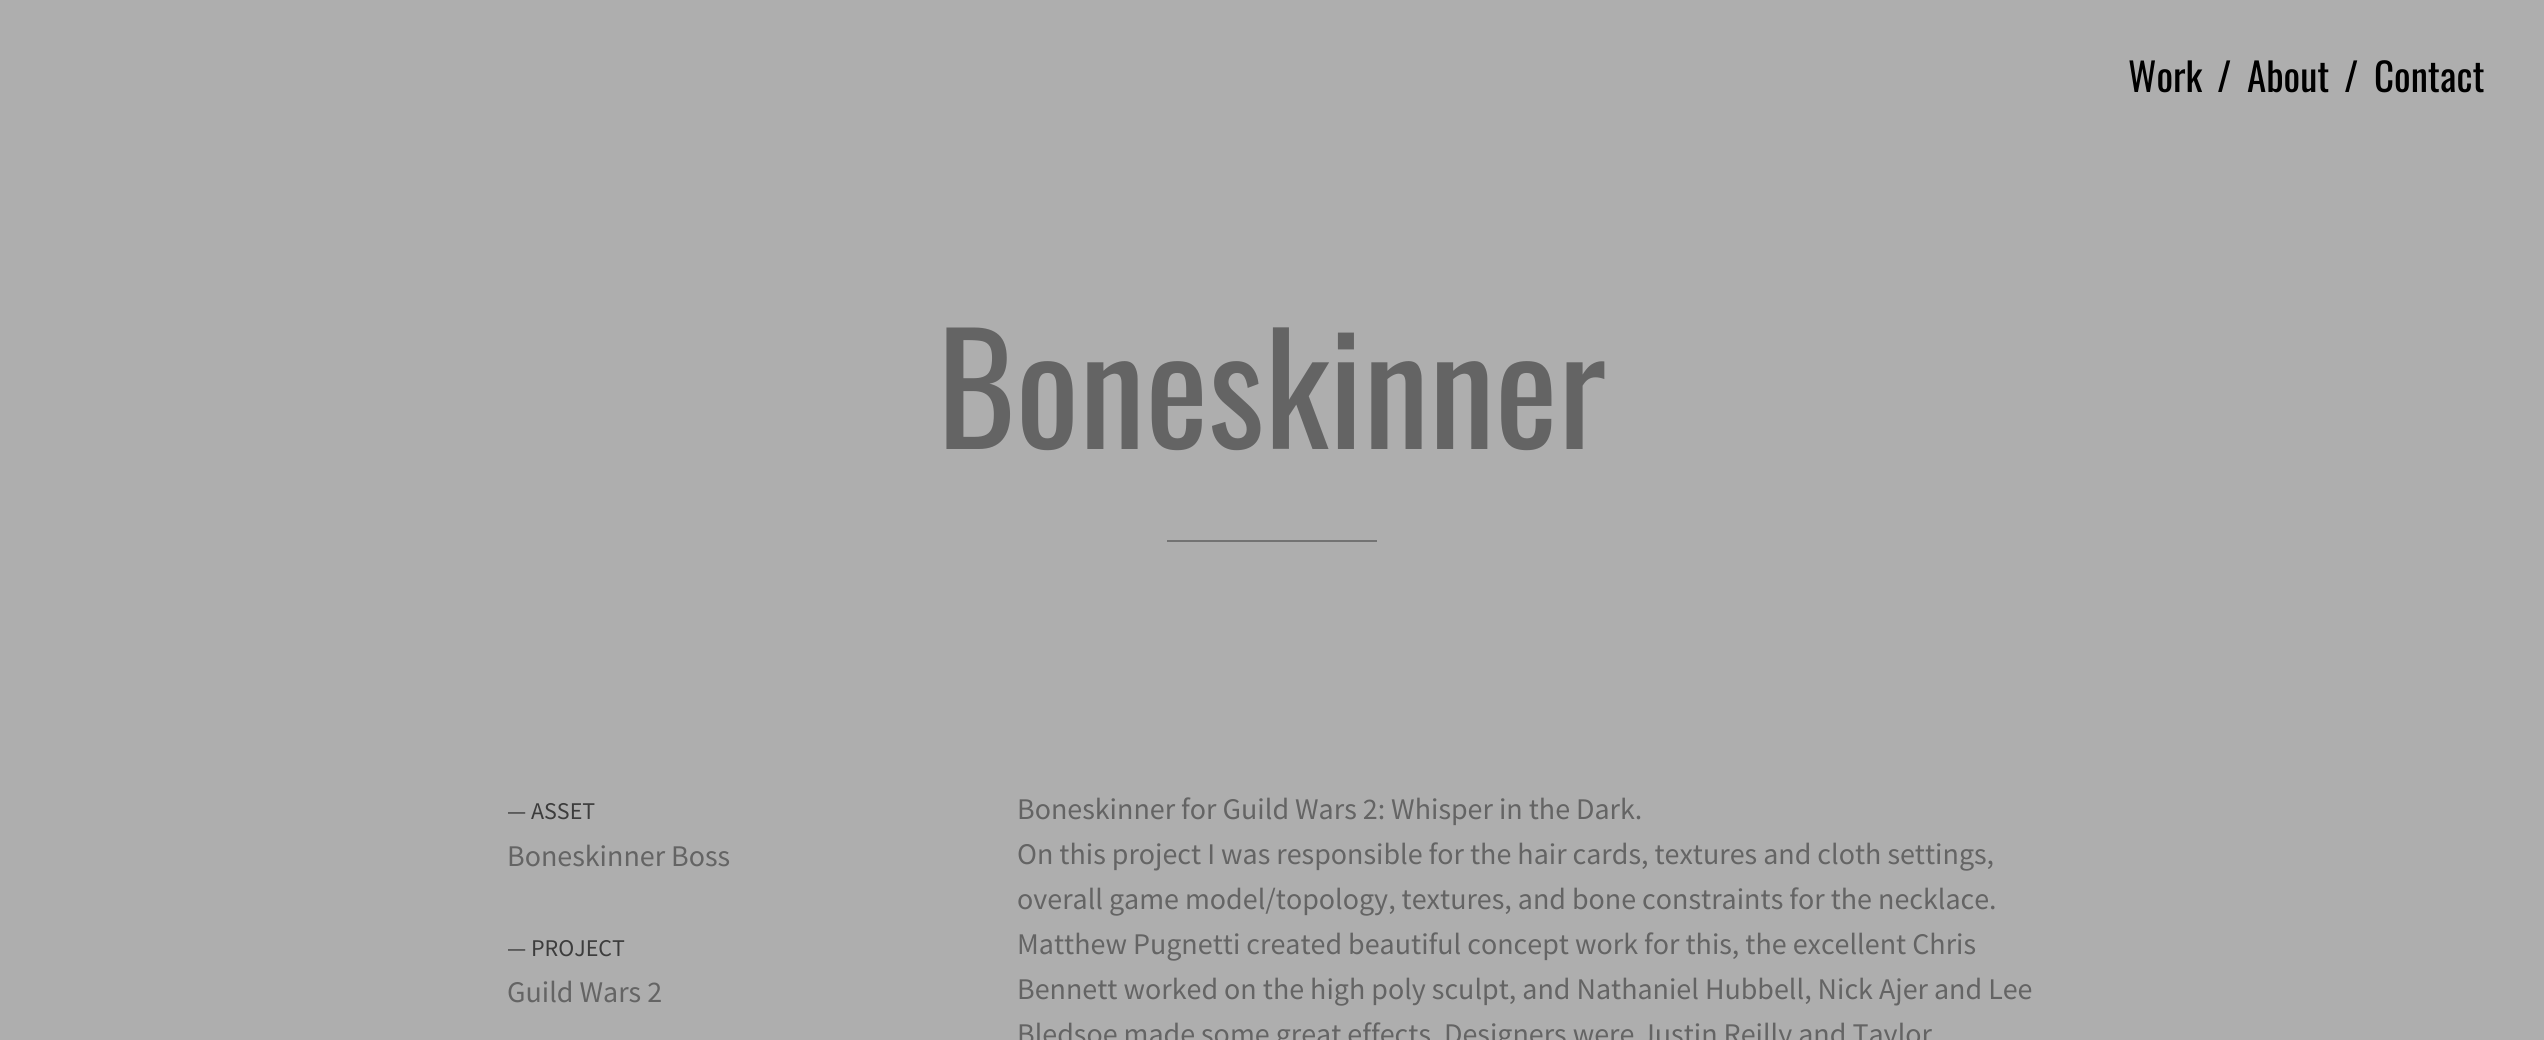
import math
import cairo

surface = cairo.ImageSurface(cairo.FORMAT_RGB24, 2544, 1040)
ctx = cairo.Context(surface)
options = cairo.FontOptions()
options.set_hint_metrics(cairo.HINT_METRICS_OFF)
options.set_hint_style(cairo.HINT_STYLE_NONE)
ctx.set_font_options(options)
ctx.set_miter_limit(4)


def set_color(code):
    ctx.set_source_rgb(*(v / 255 for v in bytes.fromhex(code[-6:])))


def draw_text(x, y, s, family, size, color, bold=False, italic=False):
    ctx.select_font_face(family, cairo.FONT_SLANT_ITALIC if italic else cairo.FONT_SLANT_NORMAL, cairo.FONT_WEIGHT_BOLD if bold else cairo.FONT_WEIGHT_NORMAL)
    ctx.set_font_size(size)
    set_color(color)
    ctx.move_to(x, y)
    ctx.show_text(s)


def fill_rect(x, y, w, h, color):
    set_color(color)
    ctx.rectangle(x, y, w, h)
    ctx.fill()


set_color("#aeaeae")
ctx.paint()
draw_text(2128, 92, "Work", "Oswald", 39, "#000000")
draw_text(2217, 92, "/", "Oswald", 39, "#000000")
draw_text(2247, 92, "About", "Oswald", 39, "#000000")
draw_text(2344, 92, "/", "Oswald", 39, "#000000")
draw_text(2374, 92, "Contact", "Oswald", 39, "#000000")
draw_text(937, 449, "Boneskinner", "Oswald", 150, "#646464")
fill_rect(1167, 540, 210, 2, "#737373")
draw_text(507, 819, "— ASSET", "Source Sans Pro", 24, "#3c3c3c")
draw_text(507, 866, "Boneskinner Boss", "Source Sans Pro", 30, "#646464")
draw_text(507, 956, "— PROJECT", "Source Sans Pro", 24, "#3c3c3c")
draw_text(507, 1002, "Guild Wars 2", "Source Sans Pro", 30, "#646464")
draw_text(1017, 819, "Boneskinner for Guild Wars 2: Whisper in the Dark.", "Source Sans Pro", 30, "#646464")
draw_text(1017, 864, "On this project I was responsible for the hair cards, textures and cloth settings,", "Source Sans Pro", 30, "#646464")
draw_text(1017, 909, "overall game model/topology, textures, and bone constraints for the necklace.", "Source Sans Pro", 30, "#646464")
draw_text(1017, 954, "Matthew Pugnetti created beautiful concept work for this, the excellent Chris", "Source Sans Pro", 30, "#646464")
draw_text(1017, 999, "Bennett worked on the high poly sculpt, and Nathaniel Hubbell, Nick Ajer and Lee", "Source Sans Pro", 30, "#646464")
draw_text(1017, 1044, "Bledsoe made some great effects", "Source Sans Pro", 30, "#646464")
draw_text(1444, 1044, "Designers were Justin Reilly and Taylor", "Source Sans Pro", 30, "#646464")
surface.write_to_png("output.png")
